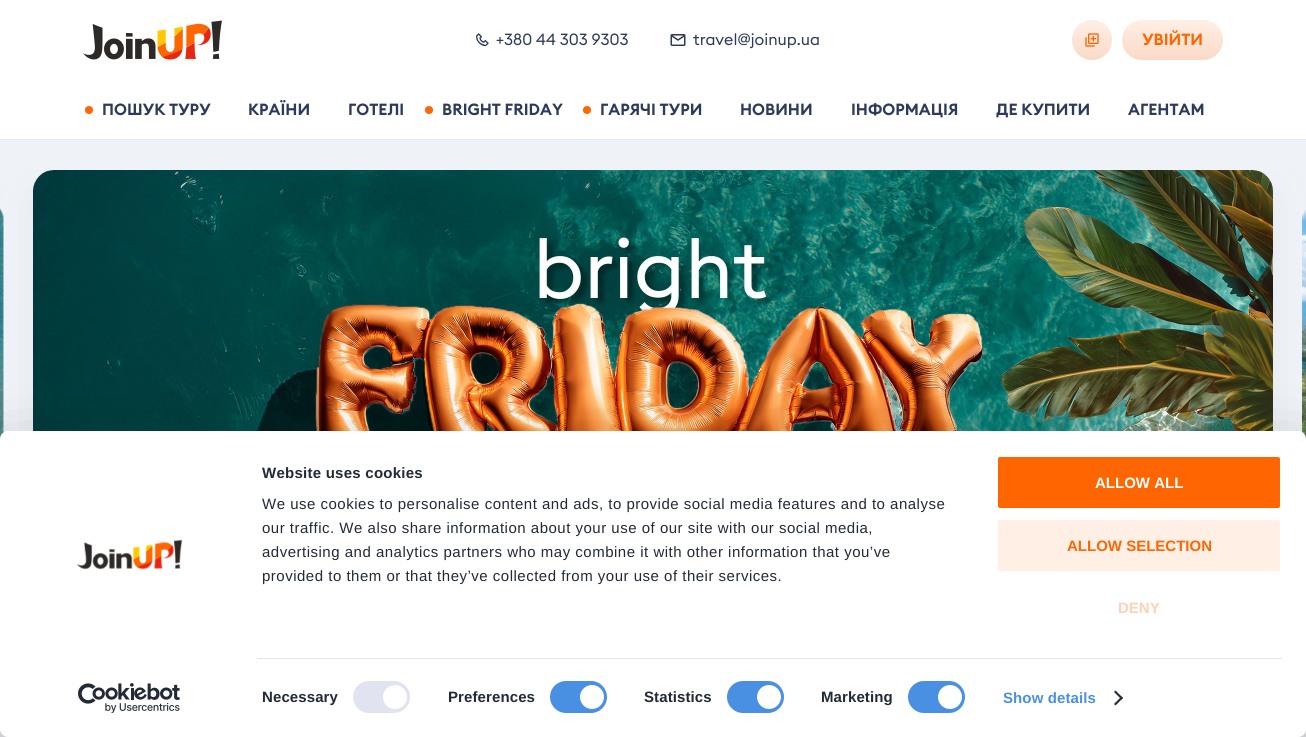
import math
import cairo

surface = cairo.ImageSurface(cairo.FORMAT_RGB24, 1306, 737)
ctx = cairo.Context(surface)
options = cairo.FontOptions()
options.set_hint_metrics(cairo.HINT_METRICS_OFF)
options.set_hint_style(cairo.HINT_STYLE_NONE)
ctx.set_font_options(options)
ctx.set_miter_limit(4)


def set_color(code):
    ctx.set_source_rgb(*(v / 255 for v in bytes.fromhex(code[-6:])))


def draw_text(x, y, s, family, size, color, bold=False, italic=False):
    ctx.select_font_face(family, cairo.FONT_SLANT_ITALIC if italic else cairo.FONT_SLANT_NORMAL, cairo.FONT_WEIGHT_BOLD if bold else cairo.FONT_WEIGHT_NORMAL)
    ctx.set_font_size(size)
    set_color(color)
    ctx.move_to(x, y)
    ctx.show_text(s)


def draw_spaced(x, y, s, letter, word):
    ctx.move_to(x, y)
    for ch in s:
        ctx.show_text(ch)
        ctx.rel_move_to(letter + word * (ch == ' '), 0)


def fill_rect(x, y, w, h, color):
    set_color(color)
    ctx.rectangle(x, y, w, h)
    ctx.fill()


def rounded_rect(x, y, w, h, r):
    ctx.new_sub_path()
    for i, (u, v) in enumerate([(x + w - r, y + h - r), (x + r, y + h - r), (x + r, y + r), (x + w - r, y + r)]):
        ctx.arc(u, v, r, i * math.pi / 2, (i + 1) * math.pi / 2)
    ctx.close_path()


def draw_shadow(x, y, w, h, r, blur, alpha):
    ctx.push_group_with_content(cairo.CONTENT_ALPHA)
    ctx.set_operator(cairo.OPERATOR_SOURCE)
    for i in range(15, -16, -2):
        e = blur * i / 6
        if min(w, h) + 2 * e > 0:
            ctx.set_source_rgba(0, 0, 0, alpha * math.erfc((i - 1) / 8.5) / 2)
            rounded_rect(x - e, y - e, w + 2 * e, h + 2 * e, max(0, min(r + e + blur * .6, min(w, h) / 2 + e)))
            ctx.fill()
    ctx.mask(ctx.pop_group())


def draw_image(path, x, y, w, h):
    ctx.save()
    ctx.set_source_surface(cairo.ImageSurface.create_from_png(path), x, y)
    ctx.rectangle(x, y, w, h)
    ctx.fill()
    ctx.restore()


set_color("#eff2f7")
ctx.paint()
draw_image("assets/img6.png", 0, 208, 4, 231)
draw_image("assets/img7.png", 1302, 209, 4, 230)
ctx.save()
ctx.rectangle(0, 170, 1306, 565)
ctx.clip()
set_color("#e5e9f0")
draw_shadow(33, 184, 1240, 520, 21, 17.5, 1)
ctx.restore()
fill_rect(0, 0, 1306, 139, "#ffffff")
draw_image("assets/img1.png", 83, 20, 139, 40)
draw_image("assets/img2.png", 476, 33, 13, 13)
draw_text(496, 45, "+380 44 303 9303", "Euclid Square", 16, "#2e3a59")
draw_image("assets/img3.png", 670, 34, 16, 12)
draw_text(693, 45, "travel@joinup.ua", "Euclid Square", 16, "#2e3a59")
gradient = cairo.LinearGradient(1092, 20, 1092, 60)
gradient.add_color_stop_rgba(0, 1, 0.937, 0.898, 1)
gradient.add_color_stop_rgba(1, 0.98, 0.855, 0.78, 1)
ctx.set_source(gradient)
ctx.new_path()
ctx.arc(1092, 40, 20, 0, 2 * math.pi)
ctx.fill()
draw_image("assets/img4.png", 1085, 33, 14, 14)
gradient = cairo.LinearGradient(1173, 20, 1173, 60)
gradient.add_color_stop_rgba(0, 1, 0.937, 0.898, 1)
gradient.add_color_stop_rgba(1, 0.98, 0.855, 0.78, 1)
ctx.set_source(gradient)
rounded_rect(1122, 20, 101, 40, 20)
ctx.fill()
draw_text(1142, 45, "УВІЙТИ", "Euclid Square SemiBold", 16, "#ff6500")
ctx.new_path()
ctx.arc(89, 110, 4, 0, 2 * math.pi)
ctx.fill()
draw_text(102, 115, "ПОШУК ТУРУ", "Euclid Square SemiBold", 16, "#2e3a59")
draw_text(248, 115, "КРАЇНИ", "Euclid Square SemiBold", 16, "#2e3a59")
draw_text(348, 115, "ГОТЕЛІ", "Euclid Square SemiBold", 16, "#2e3a59")
set_color("#ff6500")
ctx.new_path()
ctx.arc(429, 110, 4, 0, 2 * math.pi)
ctx.fill()
draw_text(442, 115, "BRIGHT FRIDAY", "Euclid Square SemiBold", 16, "#2e3a59")
set_color("#ff6500")
ctx.new_path()
ctx.arc(587, 110, 4, 0, 2 * math.pi)
ctx.fill()
draw_text(600, 115, "ГАРЯЧІ ТУРИ", "Euclid Square SemiBold", 16, "#2e3a59")
draw_text(740, 115, "НОВИНИ", "Euclid Square SemiBold", 16, "#2e3a59")
draw_text(851, 115, "ІНФОРМАЦІЯ", "Euclid Square SemiBold", 16, "#2e3a59")
draw_text(996, 115, "ДЕ КУПИТИ", "Euclid Square SemiBold", 16, "#2e3a59")
draw_text(1128, 115, "АГЕНТАМ", "Euclid Square SemiBold", 16, "#2e3a59")
fill_rect(0, 139, 1306, 1, "#e3ebfb")
draw_image("assets/img5.png", 33, 170, 1240, 261)
set_color("#000000")
draw_shadow(0, 461, 1306, 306, 8, 35, 0.3)
set_color("#ffffff")
rounded_rect(0, 431, 1306, 306, 8)
ctx.fill()
draw_image("assets/img8.png", 76, 539, 106, 31)
draw_image("assets/img9.png", 78, 683, 102, 30)
ctx.select_font_face("Liberation Sans", cairo.FONT_SLANT_NORMAL, cairo.FONT_WEIGHT_BOLD)
ctx.set_font_size(15)
set_color("#222a37")
draw_spaced(262, 478, "Website uses cookies", 0.25, 0)
ctx.select_font_face("Liberation Sans")
draw_spaced(262, 509, "We use cookies to personalise content and ads, to provide social media features and to analyse", 0.5, 0)
draw_spaced(262, 533, "our traffic. We also share information about your use of our site with our social media,", 0.5, 0)
draw_spaced(262, 557, "advertising and analytics partners who may combine it with other information that you’ve", 0.5, 0)
draw_spaced(262, 581, "provided to them or that they’ve collected from your use of their services.", 0.5, 0)
fill_rect(257, 658, 1025, 1, "#e1e4f0")
ctx.select_font_face("Liberation Sans", cairo.FONT_SLANT_NORMAL, cairo.FONT_WEIGHT_BOLD)
set_color("#222a37")
draw_spaced(262, 702, "Necessary", 0.1, 0)
set_color("#e1e4f0")
rounded_rect(353, 681, 57, 32, 16)
ctx.fill()
set_color("#ffffff")
ctx.arc(395, 697, 12, 0, 2 * math.pi)
ctx.fill()
set_color("#222a37")
draw_spaced(448, 702, "Preferences", 0.1, 0)
set_color("#4a90e2")
rounded_rect(550, 681, 57, 32, 16)
ctx.fill()
set_color("#ffffff")
ctx.arc(592, 697, 12, 0, 2 * math.pi)
ctx.fill()
set_color("#222a37")
draw_spaced(644, 702, "Statistics", 0.1, 0)
set_color("#4a90e2")
rounded_rect(727, 681, 57, 32, 16)
ctx.fill()
set_color("#ffffff")
ctx.arc(769, 697, 12, 0, 2 * math.pi)
ctx.fill()
set_color("#222a37")
draw_spaced(821, 702, "Marketing", 0.1, 0)
set_color("#4a90e2")
rounded_rect(908, 681, 57, 32, 16)
ctx.fill()
set_color("#ffffff")
ctx.arc(950, 697, 12, 0, 2 * math.pi)
ctx.fill()
set_color("#4a90e2")
draw_spaced(1003, 703, "Show details", 0.1, 0)
set_color("#222a37")
ctx.new_path()
ctx.move_to(1115.5, 690.5)
ctx.line_to(1123, 698)
ctx.line_to(1121.5, 699.5)
ctx.line_to(1114, 692)
ctx.close_path()
ctx.fill()
ctx.new_path()
ctx.move_to(1121.5, 696.5)
ctx.line_to(1123, 698)
ctx.line_to(1115.5, 705.5)
ctx.line_to(1114, 704)
ctx.close_path()
ctx.fill()
set_color("#ff6500")
rounded_rect(997, 456, 284, 53, 3)
ctx.fill_preserve()
set_color("#ffffff")
ctx.stroke()
draw_text(1095, 488, "ALLOW ALL", "Liberation Sans", 15, "#ffffff", bold=True)
set_color("#ffefe5")
rounded_rect(997, 519, 284, 53, 3)
ctx.fill_preserve()
set_color("#ffffff")
ctx.stroke()
draw_text(1067, 551, "ALLOW SELECTION", "Liberation Sans", 15, "#ff6500", bold=True)
draw_text(1118, 613, "DENY", "Liberation Sans", 15, "#ffd1b3", bold=True)
surface.write_to_png("output.png")
